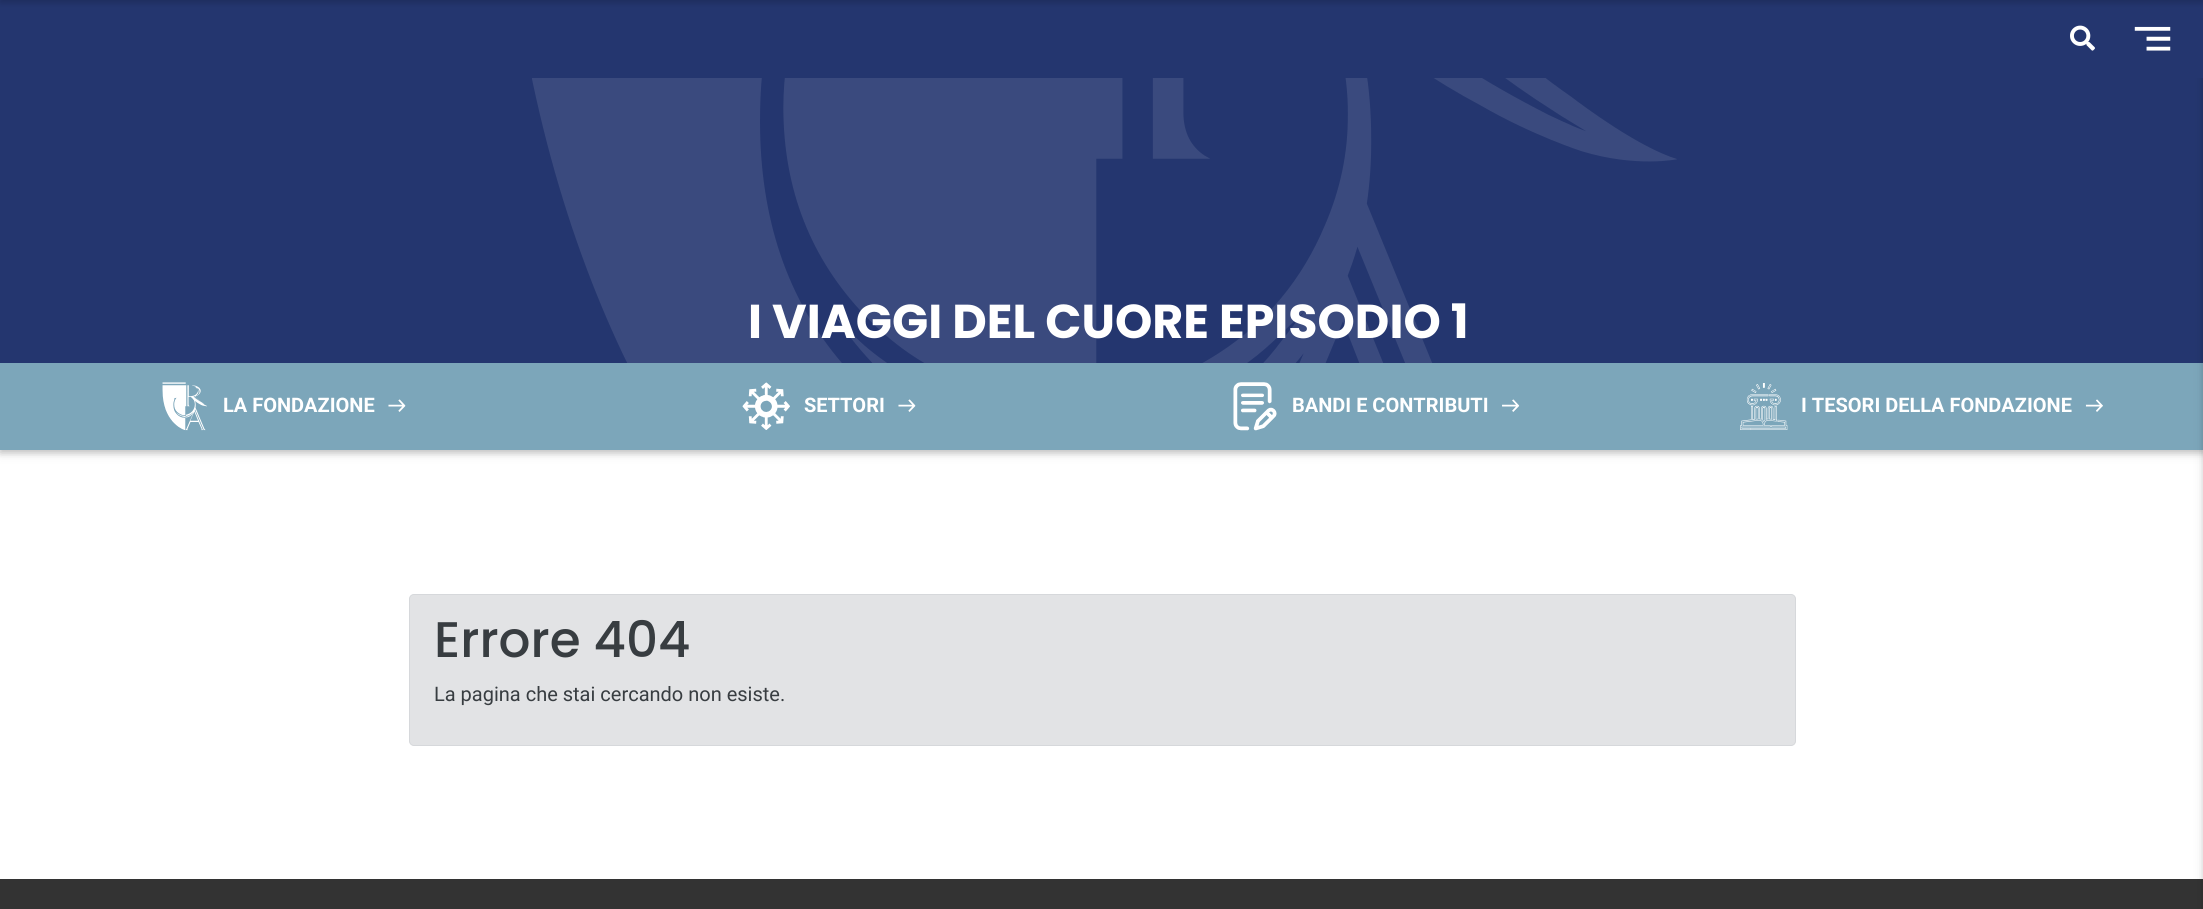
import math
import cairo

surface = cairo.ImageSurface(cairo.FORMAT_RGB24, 2203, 909)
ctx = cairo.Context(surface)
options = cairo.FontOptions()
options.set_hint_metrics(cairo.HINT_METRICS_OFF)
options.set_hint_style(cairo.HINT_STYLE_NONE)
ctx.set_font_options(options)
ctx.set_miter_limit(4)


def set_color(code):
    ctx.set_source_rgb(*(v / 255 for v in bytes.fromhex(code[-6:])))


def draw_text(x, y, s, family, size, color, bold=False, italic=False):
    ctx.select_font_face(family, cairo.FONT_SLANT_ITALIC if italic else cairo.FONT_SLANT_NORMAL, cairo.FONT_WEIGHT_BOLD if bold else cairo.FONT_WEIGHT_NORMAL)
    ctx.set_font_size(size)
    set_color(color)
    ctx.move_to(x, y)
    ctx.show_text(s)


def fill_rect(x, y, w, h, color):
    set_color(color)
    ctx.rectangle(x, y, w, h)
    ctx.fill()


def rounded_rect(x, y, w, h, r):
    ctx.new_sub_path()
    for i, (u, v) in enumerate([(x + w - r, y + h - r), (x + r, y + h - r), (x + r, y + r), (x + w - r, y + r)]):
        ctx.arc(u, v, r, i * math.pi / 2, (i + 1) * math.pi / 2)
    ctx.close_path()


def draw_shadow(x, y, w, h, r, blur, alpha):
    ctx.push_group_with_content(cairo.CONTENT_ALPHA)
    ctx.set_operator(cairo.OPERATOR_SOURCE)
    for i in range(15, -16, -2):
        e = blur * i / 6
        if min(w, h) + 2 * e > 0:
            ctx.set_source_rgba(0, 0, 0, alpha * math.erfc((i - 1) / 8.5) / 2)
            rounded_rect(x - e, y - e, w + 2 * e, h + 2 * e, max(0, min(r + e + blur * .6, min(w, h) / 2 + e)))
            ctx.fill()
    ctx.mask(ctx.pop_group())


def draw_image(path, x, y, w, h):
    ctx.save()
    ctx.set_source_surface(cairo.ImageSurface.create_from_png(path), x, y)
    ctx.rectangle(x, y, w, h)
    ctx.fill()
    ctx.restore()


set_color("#ffffff")
ctx.paint()
set_color("#000000")
draw_shadow(0, 53, 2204, 400, 0, 6, 0.12)
draw_shadow(0, 53, 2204, 400, 0, 3, 0.16)
fill_rect(0, 78, 2203, 285, "#24366f")
fill_rect(0, 363, 2203, 87, "#7ca6ba")
fill_rect(0, 879, 2203, 30, "#333333")
set_color("#000000")
draw_shadow(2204, 3, 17, 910, 0, 6, 0.12)
draw_shadow(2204, 3, 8, 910, 0, 3, 0.16)
fill_rect(0, 0, 2203, 78, "#24366f")
draw_image("assets/img1.png", 2070, 25, 25, 26)
draw_image("assets/img2.png", 2134, 26, 37, 25)
set_color("#000000")
draw_shadow(0, -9, 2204, 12, 0, 3, 0.16)
draw_image("assets/img3.png", 532, 78, 1145, 285)
draw_text(748, 338, "I VIAGGI DEL CUORE EPISODIO 1", "Poppins", 47.5, "#ffffff", bold=True)
draw_image("assets/img4.png", 162, 382, 45, 49)
draw_text(223, 412, "LA FONDAZIONE", "Roboto", 20, "#ffffff", bold=True)
draw_image("assets/img5.png", 388, 399, 18, 13)
draw_image("assets/img6.png", 742, 382, 48, 48)
draw_text(804, 412, "SETTORI", "Roboto", 20, "#ffffff", bold=True)
draw_image("assets/img5.png", 898, 399, 18, 13)
draw_image("assets/img7.png", 1233, 382, 44, 49)
draw_text(1292, 412, "BANDI E CONTRIBUTI", "Roboto", 20, "#ffffff", bold=True)
draw_image("assets/img8.png", 1502, 399, 18, 13)
draw_image("assets/img9.png", 1740, 383, 48, 47)
draw_text(1801, 412, "I TESORI DELLA FONDAZIONE", "Roboto", 20, "#ffffff", bold=True)
draw_image("assets/img10.png", 2085, 399, 18, 13)
set_color("#e2e3e5")
rounded_rect(409.5, 594.5, 1386, 151, 4.5)
ctx.fill_preserve()
set_color("#d6d8db")
ctx.set_line_width(1)
ctx.stroke()
draw_text(434, 657, "Errore 404", "Poppins Medium", 50, "#383d41")
draw_text(434, 701, "La pagina che stai cercando non esiste.", "Roboto", 20, "#383d41")
surface.write_to_png("output.png")
